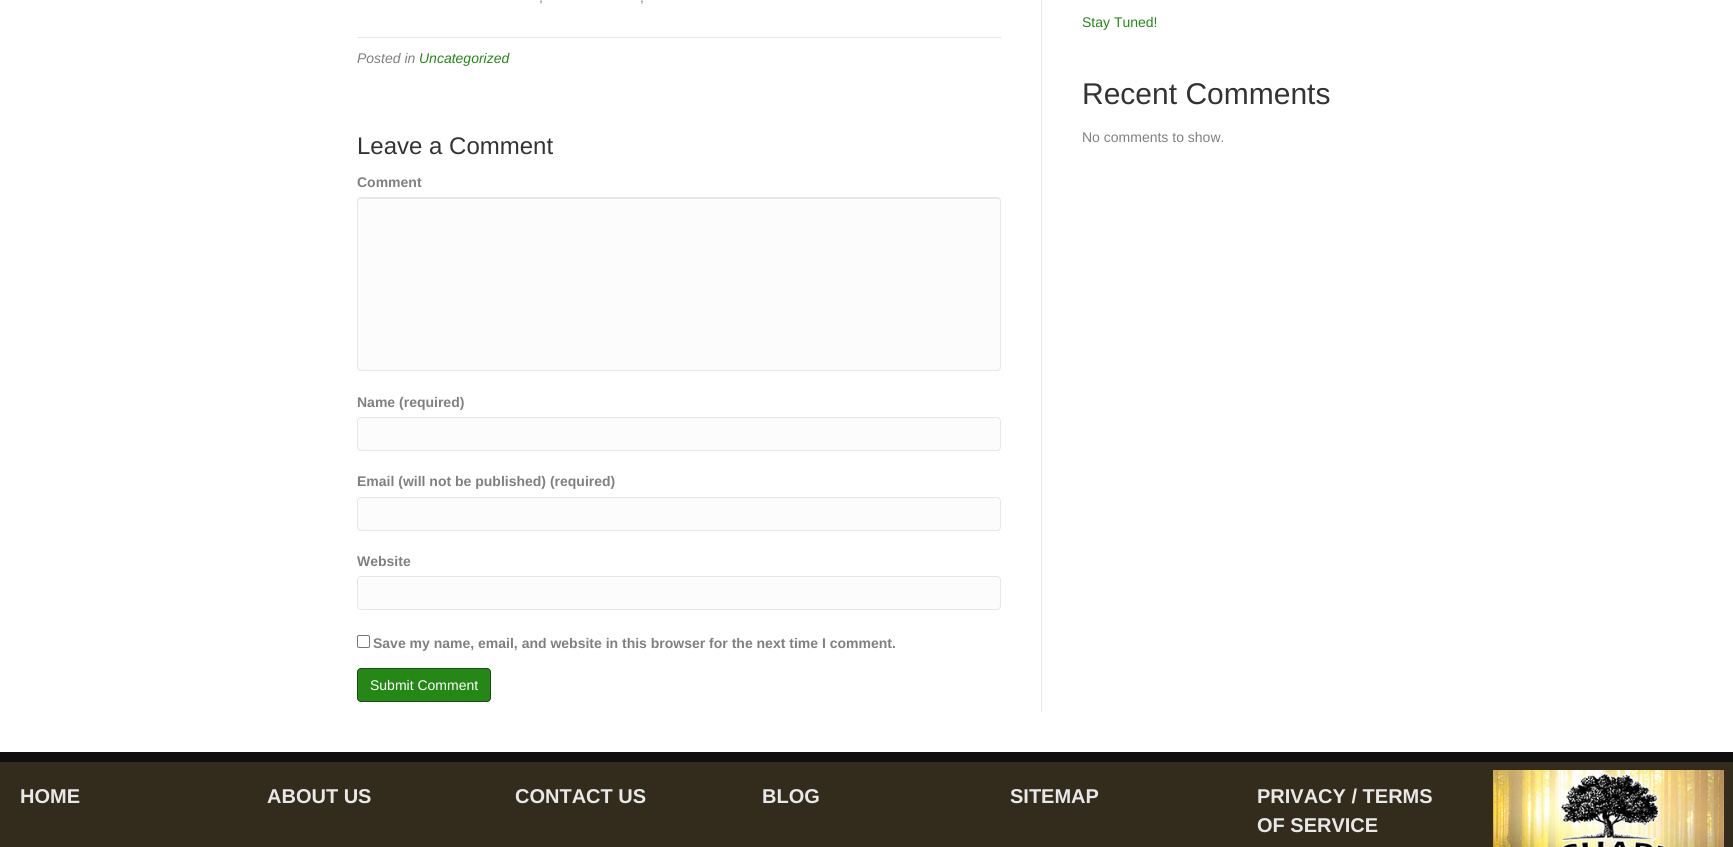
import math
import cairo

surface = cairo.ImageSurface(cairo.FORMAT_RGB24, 1733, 847)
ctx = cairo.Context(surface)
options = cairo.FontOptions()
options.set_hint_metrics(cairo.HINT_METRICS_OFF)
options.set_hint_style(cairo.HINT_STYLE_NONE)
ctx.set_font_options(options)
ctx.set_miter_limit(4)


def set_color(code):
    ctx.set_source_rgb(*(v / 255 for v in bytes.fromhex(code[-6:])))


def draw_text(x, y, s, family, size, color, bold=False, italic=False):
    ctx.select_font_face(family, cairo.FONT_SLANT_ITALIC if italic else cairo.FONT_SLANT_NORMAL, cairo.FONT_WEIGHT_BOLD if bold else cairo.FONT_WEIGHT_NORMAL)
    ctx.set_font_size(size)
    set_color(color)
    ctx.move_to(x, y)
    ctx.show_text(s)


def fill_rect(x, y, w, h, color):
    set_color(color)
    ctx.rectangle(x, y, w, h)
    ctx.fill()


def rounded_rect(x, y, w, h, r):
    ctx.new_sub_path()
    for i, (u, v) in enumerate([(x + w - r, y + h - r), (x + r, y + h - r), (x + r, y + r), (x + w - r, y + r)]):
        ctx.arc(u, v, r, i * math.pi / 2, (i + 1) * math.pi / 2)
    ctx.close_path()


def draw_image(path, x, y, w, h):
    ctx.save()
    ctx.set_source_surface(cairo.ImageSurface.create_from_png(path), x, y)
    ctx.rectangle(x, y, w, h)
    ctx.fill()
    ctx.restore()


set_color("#ffffff")
ctx.paint()
fill_rect(1041, 0, 1, 712, "#e6e6e6")
draw_text(539, 2, ",", "Liberation Sans", 14, "#808080")
draw_text(640, 2, ",", "Liberation Sans", 14, "#808080")
fill_rect(357, 37, 644, 1, "#e6e6e6")
draw_text(357, 63, "Posted in", "Liberation Sans", 14, "#808080", italic=True)
draw_text(419, 63, "Uncategorized", "Liberation Sans", 14, "#248716", italic=True)
draw_text(357, 154, "Leave a Comment", "Liberation Sans", 24, "#333333")
draw_text(357, 187, "Comment", "Liberation Sans", 14, "#808080", bold=True)
set_color("#fcfcfc")
rounded_rect(357, 197, 644, 174, 4)
ctx.fill()
set_color("#e9e9e9")
ctx.new_path()
ctx.move_to(361, 199)
ctx.line_to(997, 199)
ctx.curve_to(999, 199, 1000, 200, 1000, 202)
ctx.line_to(1000, 201)
ctx.curve_to(1000, 199, 999, 198, 997, 198)
ctx.line_to(361, 198)
ctx.curve_to(359, 198, 358, 199, 358, 201)
ctx.line_to(358, 202)
ctx.curve_to(358, 200, 359, 199, 361, 199)
ctx.close_path()
ctx.fill()
rounded_rect(357.5, 197.5, 643, 173, 3.5)
set_color("#e6e6e6")
ctx.set_line_width(1)
ctx.stroke()
draw_text(357, 407, "Name (required)", "Liberation Sans", 14, "#808080", bold=True)
set_color("#fcfcfc")
rounded_rect(357.5, 417.5, 643, 33, 3.5)
ctx.fill_preserve()
set_color("#e6e6e6")
ctx.stroke()
draw_text(357, 486, "Email (will not be published) (required)", "Liberation Sans", 14, "#808080", bold=True)
set_color("#fcfcfc")
rounded_rect(357.5, 497.5, 643, 33, 3.5)
ctx.fill_preserve()
set_color("#e6e6e6")
ctx.stroke()
draw_text(357, 566, "Website", "Liberation Sans", 14, "#808080", bold=True)
set_color("#fcfcfc")
rounded_rect(357.5, 576.5, 643, 33, 3.5)
ctx.fill_preserve()
set_color("#e6e6e6")
ctx.stroke()
rounded_rect(357.5, 635.5, 12, 12, 1.5)
set_color("#767676")
ctx.stroke()
draw_text(373, 648, "Save my name, email, and website in this browser for the next time I comment.", "Liberation Sans", 14, "#808080", bold=True)
set_color("#248716")
rounded_rect(357.5, 668.5, 133, 33, 3.5)
ctx.fill_preserve()
set_color("#16520d")
ctx.stroke()
draw_text(370, 690, "Submit Comment", "Liberation Sans", 14, "#ffffff")
draw_text(1082, 27, "Stay Tuned!", "Liberation Sans", 14, "#248716")
draw_text(1082, 104, "Recent Comments", "Liberation Sans", 30, "#333333")
draw_text(1082, 142, "No comments to show.", "Liberation Sans", 14, "#808080")
fill_rect(0, 762, 1733, 85, "#332b1b")
fill_rect(0, 752, 1733, 10, "#0f0f0f")
draw_text(20, 803, "HOME", "Liberation Sans", 20, "#e8e8e8", bold=True)
draw_text(267, 803, "ABOUT US", "Liberation Sans", 20, "#e8e8e8", bold=True)
draw_text(515, 803, "CONTACT US", "Liberation Sans", 20, "#e8e8e8", bold=True)
draw_text(762, 803, "BLOG", "Liberation Sans", 20, "#e8e8e8", bold=True)
draw_text(1010, 803, "SITEMAP", "Liberation Sans", 20, "#e8e8e8", bold=True)
draw_text(1257, 803, "PRIVACY / TERMS", "Liberation Sans", 20, "#e8e8e8", bold=True)
draw_text(1257, 832, "OF SERVICE", "Liberation Sans", 20, "#e8e8e8", bold=True)
draw_image("assets/img1.png", 1493, 770, 231, 77)
surface.write_to_png("output.png")
